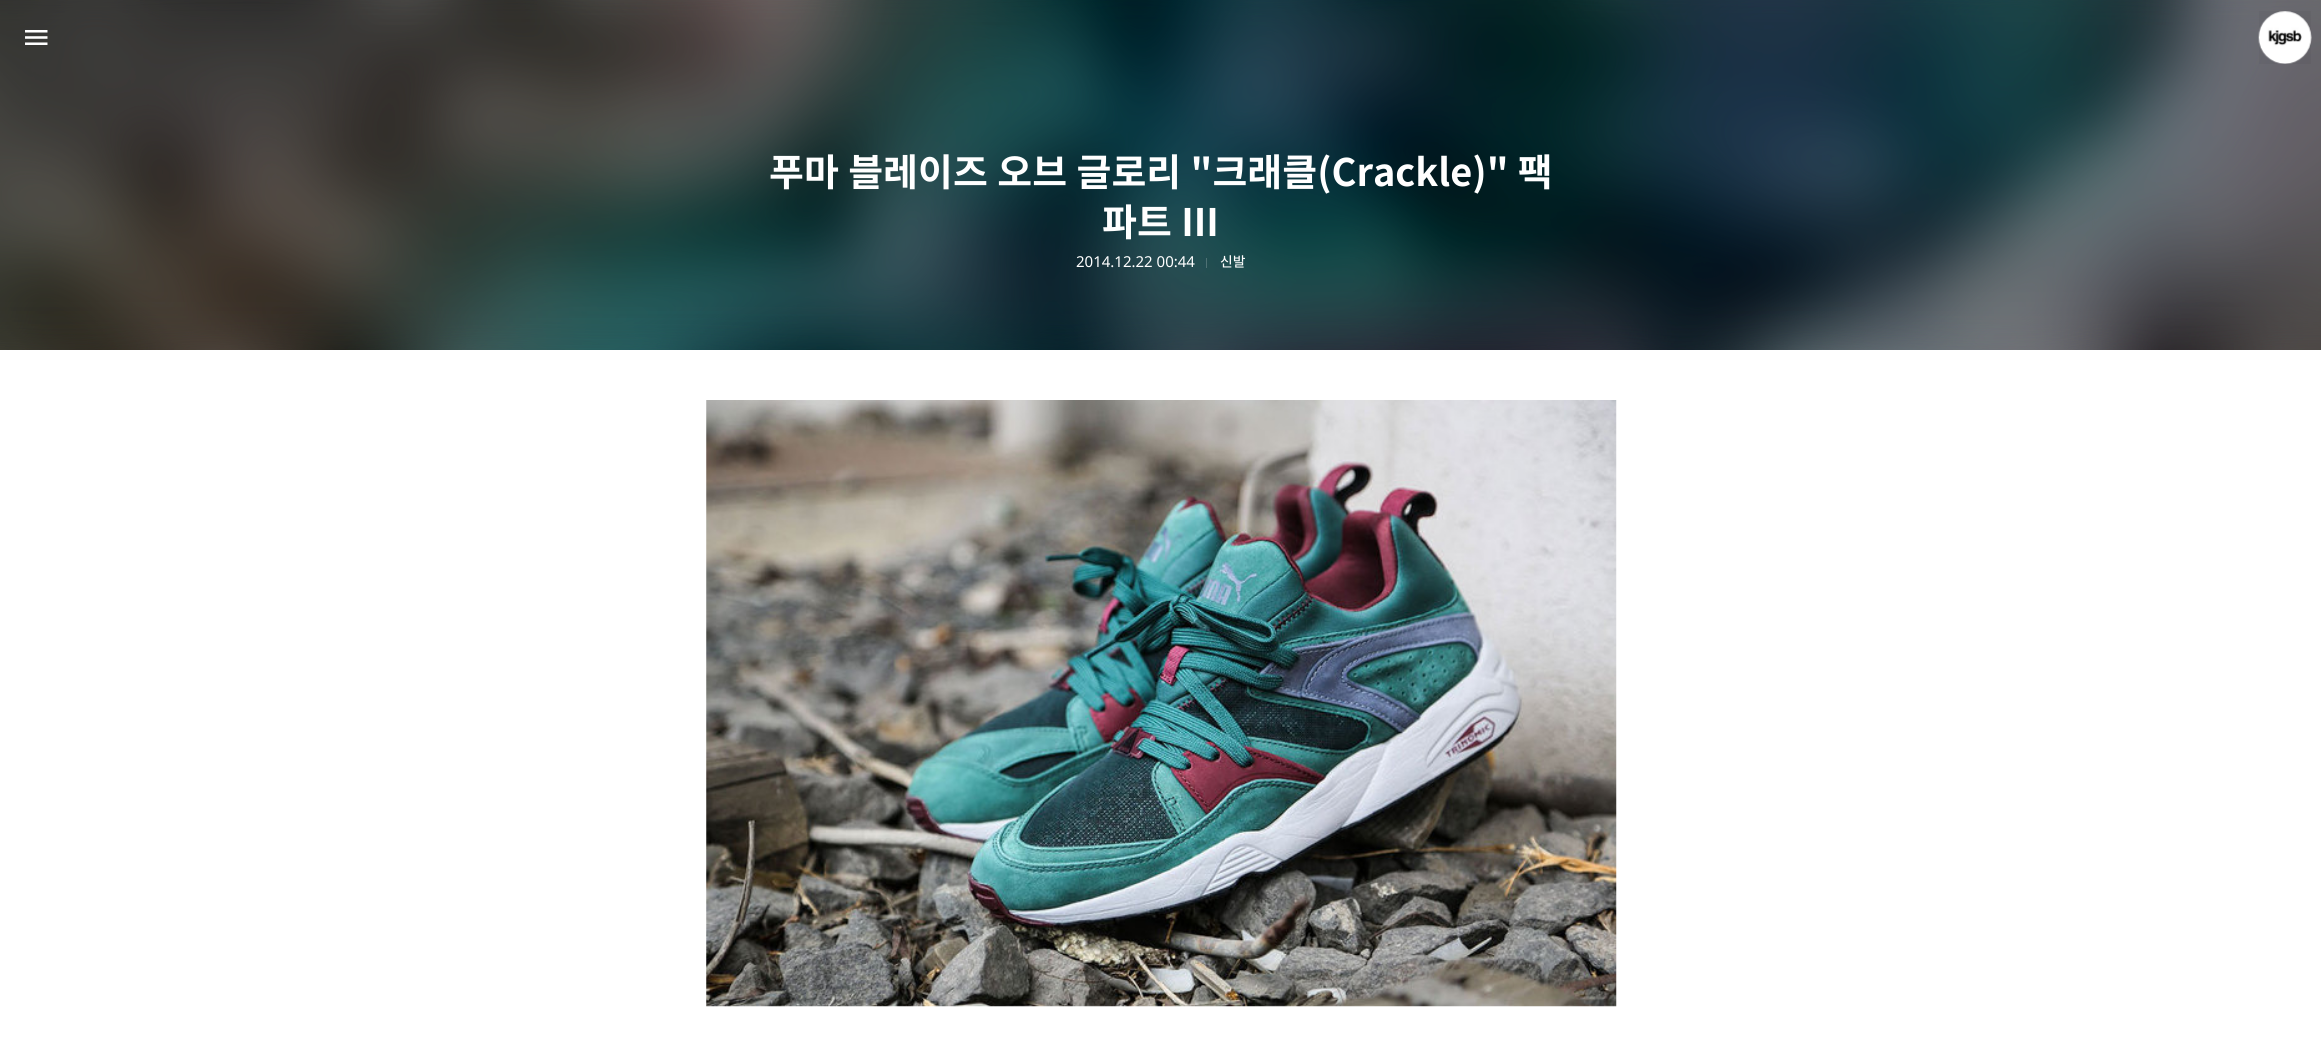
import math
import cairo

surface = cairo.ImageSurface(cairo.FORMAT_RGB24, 2321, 1063)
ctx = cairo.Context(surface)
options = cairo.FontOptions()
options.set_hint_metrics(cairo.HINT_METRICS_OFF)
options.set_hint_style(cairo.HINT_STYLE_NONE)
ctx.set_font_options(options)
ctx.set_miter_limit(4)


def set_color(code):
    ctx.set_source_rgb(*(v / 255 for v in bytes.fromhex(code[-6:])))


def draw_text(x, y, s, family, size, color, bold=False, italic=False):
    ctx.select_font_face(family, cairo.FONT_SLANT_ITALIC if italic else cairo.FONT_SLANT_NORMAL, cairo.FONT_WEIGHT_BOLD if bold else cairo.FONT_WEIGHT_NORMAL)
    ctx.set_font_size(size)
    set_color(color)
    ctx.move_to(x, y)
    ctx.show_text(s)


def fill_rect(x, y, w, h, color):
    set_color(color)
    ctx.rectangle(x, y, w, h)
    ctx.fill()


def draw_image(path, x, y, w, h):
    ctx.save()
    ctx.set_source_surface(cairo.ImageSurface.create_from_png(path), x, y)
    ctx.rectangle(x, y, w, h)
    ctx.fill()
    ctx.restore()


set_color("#ffffff")
ctx.paint()
draw_image("assets/img3.png", 0, 0, 2321, 350)
draw_image("assets/img4.png", 0, 0, 2321, 350)
draw_image("assets/img1.png", 25, 30, 23, 15)
ctx.set_source_rgba(0, 0, 0, 0.04)
ctx.rectangle(2259, 11, 52, 53)
ctx.fill()
draw_image("assets/img2.png", 2258, 11, 54, 53)
draw_text(769, 187, "푸마 블레이즈 오브 글로리 \"크래클(Crackle)\" 팩", "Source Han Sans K", 41.25, "#ffffff", bold=True)
draw_text(1102, 237, "파트 III", "Source Han Sans K", 41.25, "#ffffff", bold=True)
draw_text(1076, 267, "2014.12.22 00:44", "Noto Sans", 15, "#ffffff")
fill_rect(1206, 258, 1, 10, "#4e7174")
draw_text(1220, 267, "신발", "Source Han Sans K", 15, "#ffffff")
draw_image("assets/img5.png", 706, 400, 911, 607)
surface.write_to_png("output.png")
